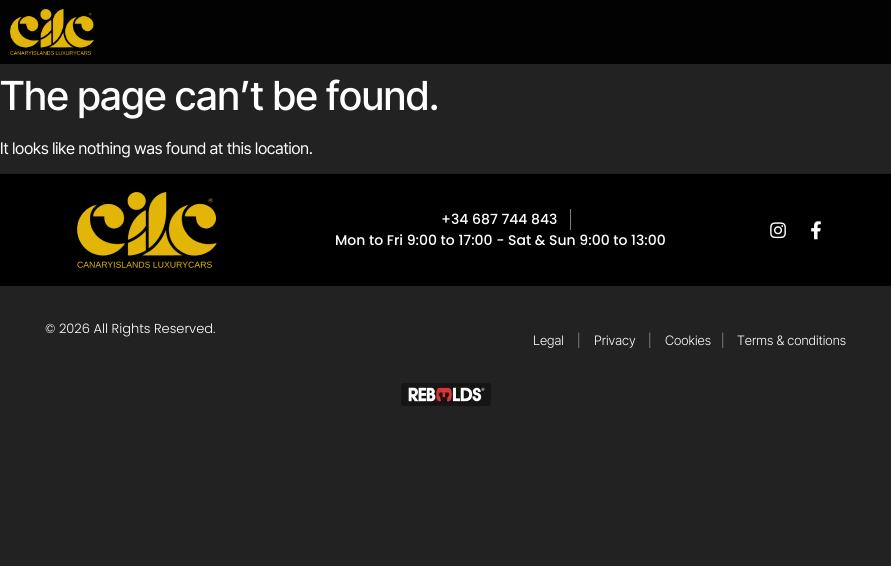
import math
import cairo

surface = cairo.ImageSurface(cairo.FORMAT_RGB24, 891, 566)
ctx = cairo.Context(surface)
options = cairo.FontOptions()
options.set_hint_metrics(cairo.HINT_METRICS_OFF)
options.set_hint_style(cairo.HINT_STYLE_NONE)
ctx.set_font_options(options)
ctx.set_miter_limit(4)


def set_color(code):
    ctx.set_source_rgb(*(v / 255 for v in bytes.fromhex(code[-6:])))


def draw_text(x, y, s, family, size, color, bold=False, italic=False):
    ctx.select_font_face(family, cairo.FONT_SLANT_ITALIC if italic else cairo.FONT_SLANT_NORMAL, cairo.FONT_WEIGHT_BOLD if bold else cairo.FONT_WEIGHT_NORMAL)
    ctx.set_font_size(size)
    set_color(color)
    ctx.move_to(x, y)
    ctx.show_text(s)


def fill_rect(x, y, w, h, color):
    set_color(color)
    ctx.rectangle(x, y, w, h)
    ctx.fill()


def draw_image(path, x, y, w, h):
    ctx.save()
    ctx.set_source_surface(cairo.ImageSurface.create_from_png(path), x, y)
    ctx.rectangle(x, y, w, h)
    ctx.fill()
    ctx.restore()


set_color("#222222")
ctx.paint()
fill_rect(0, 0, 891, 64, "#020202")
draw_image("assets/img1.png", 10, 9, 84, 46)
draw_text(0, 110, "The page can’t be found.", "Inter Tight Medium", 40, "#ffffff")
draw_text(0, 154, "It looks like nothing was found at this location.", "Inter Tight", 16, "#ffffff")
fill_rect(0, 174, 891, 112, "#000000")
draw_image("assets/img2.png", 77, 192, 140, 76)
draw_text(441, 224, "+34 687 744 843", "Poppins Medium", 14, "#ffffff")
fill_rect(570, 209, 1, 21, "#7d7d7d")
draw_text(335, 245, "Mon to Fri 9:00 to 17:00 - Sat & Sun 9:00 to 13:00", "Poppins Medium", 14, "#ffffff")
draw_image("assets/img3.png", 770, 222, 16, 17)
draw_image("assets/img4.png", 811, 221, 10, 19)
draw_text(45, 333, "© 2026 All Rights Reserved.", "Poppins Light", 13, "#ffffff")
draw_text(533, 345, "Legal", "Inter Tight Light", 13, "#ffffff")
draw_text(577, 345, "|", "Inter Tight Light", 13, "#999999")
draw_text(594, 345, "Privacy", "Inter Tight Light", 13, "#ffffff")
draw_text(648, 345, "|", "Inter Tight Light", 13, "#999999")
draw_text(665, 345, "Cookies", "Inter Tight Light", 13, "#ffffff")
draw_text(721, 345, "|", "Inter Tight Light", 13, "#999999")
draw_text(737, 345, "Terms & conditions", "Inter Tight Light", 13, "#ffffff")
draw_image("assets/img5.png", 401, 383, 90, 23)
surface.write_to_png("output.png")
